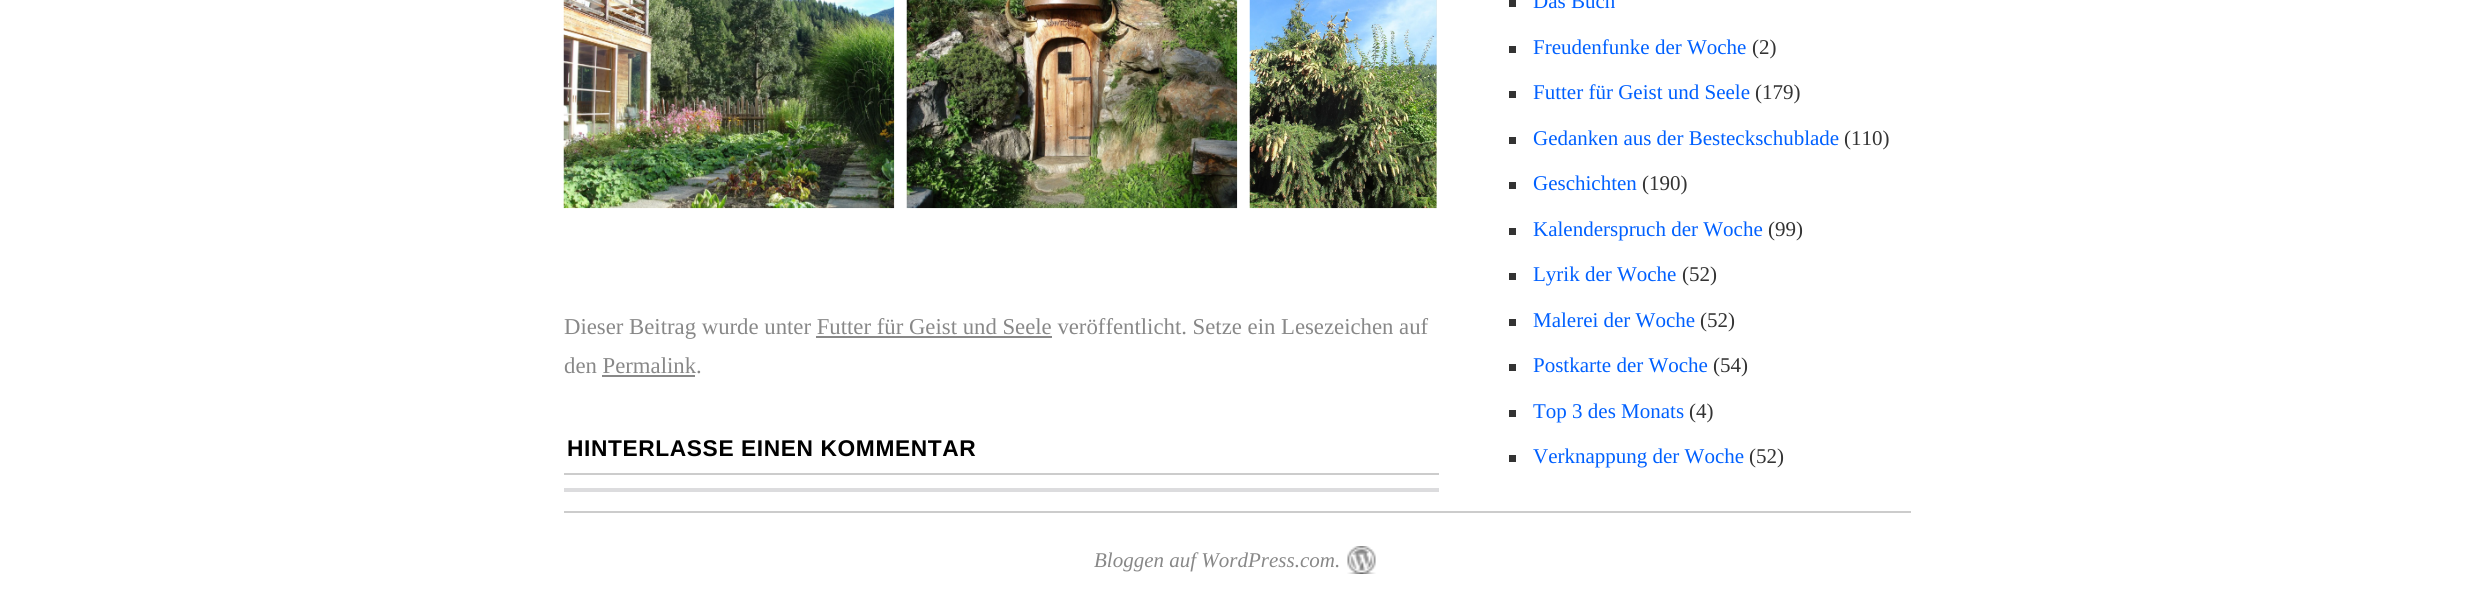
import math
import cairo

surface = cairo.ImageSurface(cairo.FORMAT_RGB24, 2474, 616)
ctx = cairo.Context(surface)
options = cairo.FontOptions()
options.set_hint_metrics(cairo.HINT_METRICS_OFF)
options.set_hint_style(cairo.HINT_STYLE_NONE)
ctx.set_font_options(options)
ctx.set_miter_limit(4)


def set_color(code):
    ctx.set_source_rgb(*(v / 255 for v in bytes.fromhex(code[-6:])))


def draw_text(x, y, s, family, size, color, bold=False, italic=False):
    ctx.select_font_face(family, cairo.FONT_SLANT_ITALIC if italic else cairo.FONT_SLANT_NORMAL, cairo.FONT_WEIGHT_BOLD if bold else cairo.FONT_WEIGHT_NORMAL)
    ctx.set_font_size(size)
    set_color(color)
    ctx.move_to(x, y)
    ctx.show_text(s)


def draw_spaced(x, y, s, letter, word):
    ctx.move_to(x, y)
    for ch in s:
        ctx.show_text(ch)
        ctx.rel_move_to(letter + word * (ch == ' '), 0)


def fill_rect(x, y, w, h, color):
    set_color(color)
    ctx.rectangle(x, y, w, h)
    ctx.fill()


def draw_image(path, x, y, w, h):
    ctx.save()
    ctx.set_source_surface(cairo.ImageSurface.create_from_png(path), x, y)
    ctx.rectangle(x, y, w, h)
    ctx.fill()
    ctx.restore()


set_color("#ffffff")
ctx.paint()
draw_image("assets/img1.png", 563, 0, 332, 209)
draw_image("assets/img2.png", 906, 0, 332, 209)
fill_rect(1436, 0, 1, 208, "#e6e6e6")
draw_image("assets/img3.png", 1249, 0, 188, 209)
draw_text(564, 334, "Dieser Beitrag wurde unter Futter für Geist und Seele veröffentlicht. Setze ein Lesezeichen auf", "Liberation Serif", 22.75, "#888888")
fill_rect(816, 336, 236, 2, "#888888")
draw_text(564, 373, "den Permalink.", "Liberation Serif", 22.75, "#888888")
fill_rect(602, 375, 93, 2, "#888888")
fill_rect(564, 473, 875, 2, "#cccccc")
ctx.select_font_face("Liberation Sans", cairo.FONT_SLANT_NORMAL, cairo.FONT_WEIGHT_BOLD)
set_color("#000000")
draw_spaced(567, 456, "HINTERLASSE EINEN KOMMENTAR", 0.6, 0)
fill_rect(564, 488, 875, 4, "#dcdcde")
fill_rect(1509, 0, 7, 7, "#333333")
draw_text(1533, 8, "Das Buch", "Liberation Serif", 21, "#0060ff")
fill_rect(1509, 46, 7, 7, "#333333")
draw_text(1533, 54, "Freudenfunke der Woche", "Liberation Serif", 21, "#0060ff")
draw_text(1752, 54, "(2)", "Liberation Serif", 21, "#333333")
fill_rect(1509, 91, 7, 7, "#333333")
draw_text(1533, 99, "Futter für Geist und Seele", "Liberation Serif", 21, "#0060ff")
draw_text(1755, 99, "(179)", "Liberation Serif", 21, "#333333")
fill_rect(1509, 137, 7, 7, "#333333")
draw_text(1533, 145, "Gedanken aus der Besteckschublade", "Liberation Serif", 21, "#0060ff")
draw_text(1844, 145, "(110)", "Liberation Serif", 21, "#333333")
fill_rect(1509, 182, 7, 7, "#333333")
draw_text(1533, 190, "Geschichten", "Liberation Serif", 21, "#0060ff")
draw_text(1642, 190, "(190)", "Liberation Serif", 21, "#333333")
fill_rect(1509, 228, 7, 7, "#333333")
draw_text(1533, 236, "Kalenderspruch der Woche", "Liberation Serif", 21, "#0060ff")
draw_text(1768, 236, "(99)", "Liberation Serif", 21, "#333333")
fill_rect(1509, 273, 7, 7, "#333333")
draw_text(1533, 281, "Lyrik der Woche", "Liberation Serif", 21, "#0060ff")
draw_text(1682, 281, "(52)", "Liberation Serif", 21, "#333333")
fill_rect(1509, 319, 7, 7, "#333333")
draw_text(1533, 327, "Malerei der Woche", "Liberation Serif", 21, "#0060ff")
draw_text(1700, 327, "(52)", "Liberation Serif", 21, "#333333")
fill_rect(1509, 364, 7, 7, "#333333")
draw_text(1533, 372, "Postkarte der Woche", "Liberation Serif", 21, "#0060ff")
draw_text(1713, 372, "(54)", "Liberation Serif", 21, "#333333")
fill_rect(1509, 410, 7, 7, "#333333")
draw_text(1533, 418, "Top 3 des Monats", "Liberation Serif", 21, "#0060ff")
draw_text(1689, 418, "(4)", "Liberation Serif", 21, "#333333")
fill_rect(1509, 455, 7, 7, "#333333")
draw_text(1533, 463, "Verknappung der Woche", "Liberation Serif", 21, "#0060ff")
draw_text(1749, 463, "(52)", "Liberation Serif", 21, "#333333")
fill_rect(564, 511, 1347, 2, "#cccccc")
draw_image("assets/img4.png", 1347, 546, 29, 28)
draw_text(1094, 567, "Bloggen auf WordPress.com.", "Liberation Serif", 21, "#888888", italic=True)
surface.write_to_png("output.png")
